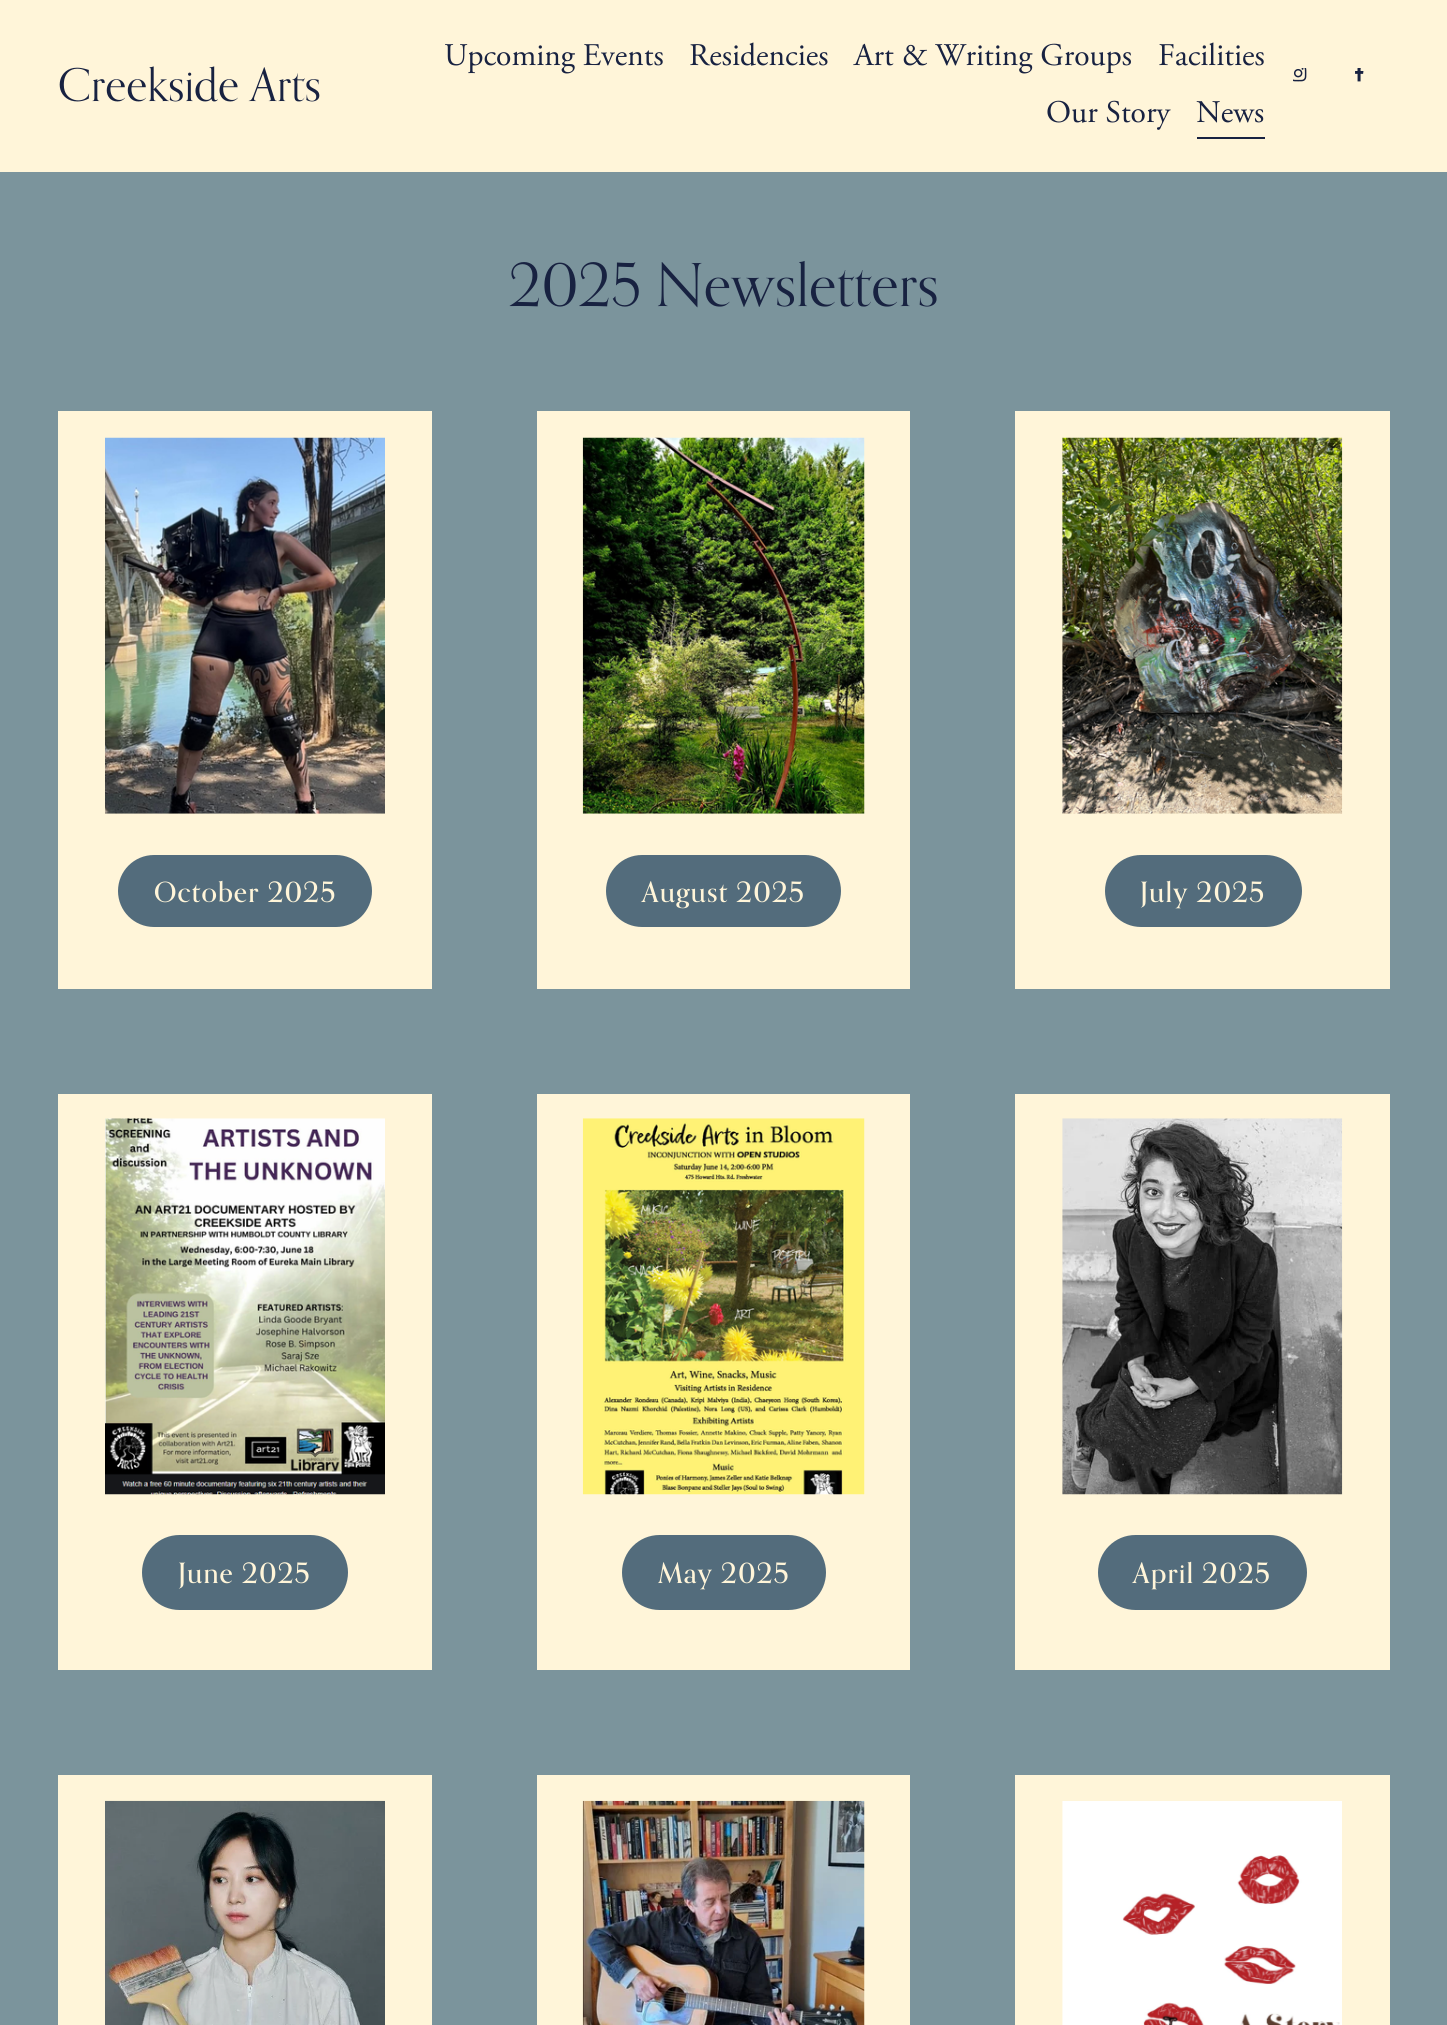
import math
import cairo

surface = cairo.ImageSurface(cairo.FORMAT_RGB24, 1447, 2025)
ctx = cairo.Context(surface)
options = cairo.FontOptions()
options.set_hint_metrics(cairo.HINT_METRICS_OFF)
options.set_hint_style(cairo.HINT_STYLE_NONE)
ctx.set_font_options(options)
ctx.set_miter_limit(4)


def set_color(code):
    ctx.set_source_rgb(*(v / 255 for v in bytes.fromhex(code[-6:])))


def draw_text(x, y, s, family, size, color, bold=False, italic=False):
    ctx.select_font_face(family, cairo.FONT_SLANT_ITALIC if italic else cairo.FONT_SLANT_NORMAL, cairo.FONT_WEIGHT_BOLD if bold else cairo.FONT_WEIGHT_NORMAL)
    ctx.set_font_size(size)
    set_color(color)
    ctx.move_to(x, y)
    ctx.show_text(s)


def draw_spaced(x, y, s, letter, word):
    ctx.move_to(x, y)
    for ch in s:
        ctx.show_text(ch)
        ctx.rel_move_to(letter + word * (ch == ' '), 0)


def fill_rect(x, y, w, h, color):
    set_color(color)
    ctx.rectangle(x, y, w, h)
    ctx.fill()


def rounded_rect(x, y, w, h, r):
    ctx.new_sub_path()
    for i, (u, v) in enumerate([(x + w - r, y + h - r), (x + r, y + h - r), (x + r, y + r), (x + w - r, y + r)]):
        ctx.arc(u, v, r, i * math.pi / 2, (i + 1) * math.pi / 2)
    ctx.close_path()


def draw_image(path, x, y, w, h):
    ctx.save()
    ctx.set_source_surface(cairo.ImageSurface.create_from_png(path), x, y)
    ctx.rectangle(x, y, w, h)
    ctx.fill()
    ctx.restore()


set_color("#7b949c")
ctx.paint()
fill_rect(0, 0, 1447, 172, "#fff5d9")
draw_text(58, 101, "Creekside Arts", "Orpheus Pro", 45.5, "#182241")
draw_text(444, 65, "Upcoming Events", "Adobe Garamond", 31.5, "#182241")
draw_text(689, 65, "Residencies", "Adobe Garamond", 31.5, "#182241")
draw_text(854, 65, "Art & Writing Groups", "Adobe Garamond", 31.5, "#182241")
draw_text(1158, 65, "Facilities", "Adobe Garamond", 31.5, "#182241")
draw_text(1046, 122, "Our Story", "Adobe Garamond", 31.5, "#182241")
fill_rect(1197, 137, 68, 2, "#182241")
draw_text(1196, 122, "News", "Adobe Garamond", 31.5, "#182241")
draw_image("assets/img1.png", 1293, 68, 14, 14)
draw_image("assets/img2.png", 1355, 68, 9, 14)
draw_text(509, 306, "2025 Newsletters", "Orpheus Pro", 59.25, "#182241")
fill_rect(58, 411, 374, 578, "#fff5d9")
draw_image("assets/img3.png", 105, 437, 280, 377)
set_color("#536c7c")
rounded_rect(116, 853, 258, 76, 38)
ctx.fill_preserve()
set_color("#fff5d9")
ctx.set_line_width(4)
ctx.stroke()
ctx.select_font_face("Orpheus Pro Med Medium")
ctx.set_font_size(28)
draw_spaced(154, 902, "October 2025", 1.1, 0)
fill_rect(537, 411, 373, 578, "#fff5d9")
draw_image("assets/img4.png", 582, 437, 283, 377)
set_color("#536c7c")
rounded_rect(604, 853, 239, 76, 38)
ctx.fill_preserve()
set_color("#fff5d9")
ctx.stroke()
draw_spaced(642, 902, "August 2025", 1.1, 0)
fill_rect(1015, 411, 375, 578, "#fff5d9")
draw_image("assets/img5.png", 1062, 437, 281, 377)
set_color("#536c7c")
rounded_rect(1103, 853, 201, 76, 38)
ctx.fill_preserve()
set_color("#fff5d9")
ctx.stroke()
draw_spaced(1140, 902, "July 2025", 1.1, 0)
fill_rect(58, 1094, 374, 576, "#fff5d9")
draw_image("assets/img6.png", 105, 1118, 280, 377)
set_color("#536c7c")
rounded_rect(140, 1533, 210, 79, 39.5)
ctx.fill_preserve()
set_color("#fff5d9")
ctx.stroke()
draw_spaced(178, 1583, "June 2025", 1.1, 0)
fill_rect(537, 1094, 373, 576, "#fff5d9")
draw_image("assets/img7.png", 582, 1118, 283, 377)
set_color("#536c7c")
rounded_rect(620, 1533, 208, 79, 39.5)
ctx.fill_preserve()
set_color("#fff5d9")
ctx.stroke()
draw_spaced(658, 1583, "May 2025", 1.1, 0)
fill_rect(1015, 1094, 375, 576, "#fff5d9")
draw_image("assets/img8.png", 1062, 1118, 281, 377)
set_color("#536c7c")
rounded_rect(1096, 1533, 213, 79, 39.5)
ctx.fill_preserve()
set_color("#fff5d9")
ctx.stroke()
draw_spaced(1133, 1583, "April 2025", 1.1, 0)
fill_rect(58, 1775, 374, 250, "#fff5d9")
draw_image("assets/img9.png", 105, 1800, 280, 225)
fill_rect(537, 1775, 373, 250, "#fff5d9")
draw_image("assets/img10.png", 582, 1800, 283, 225)
fill_rect(1015, 1775, 375, 250, "#fff5d9")
draw_image("assets/img11.png", 1062, 1801, 280, 224)
surface.write_to_png("output.png")
